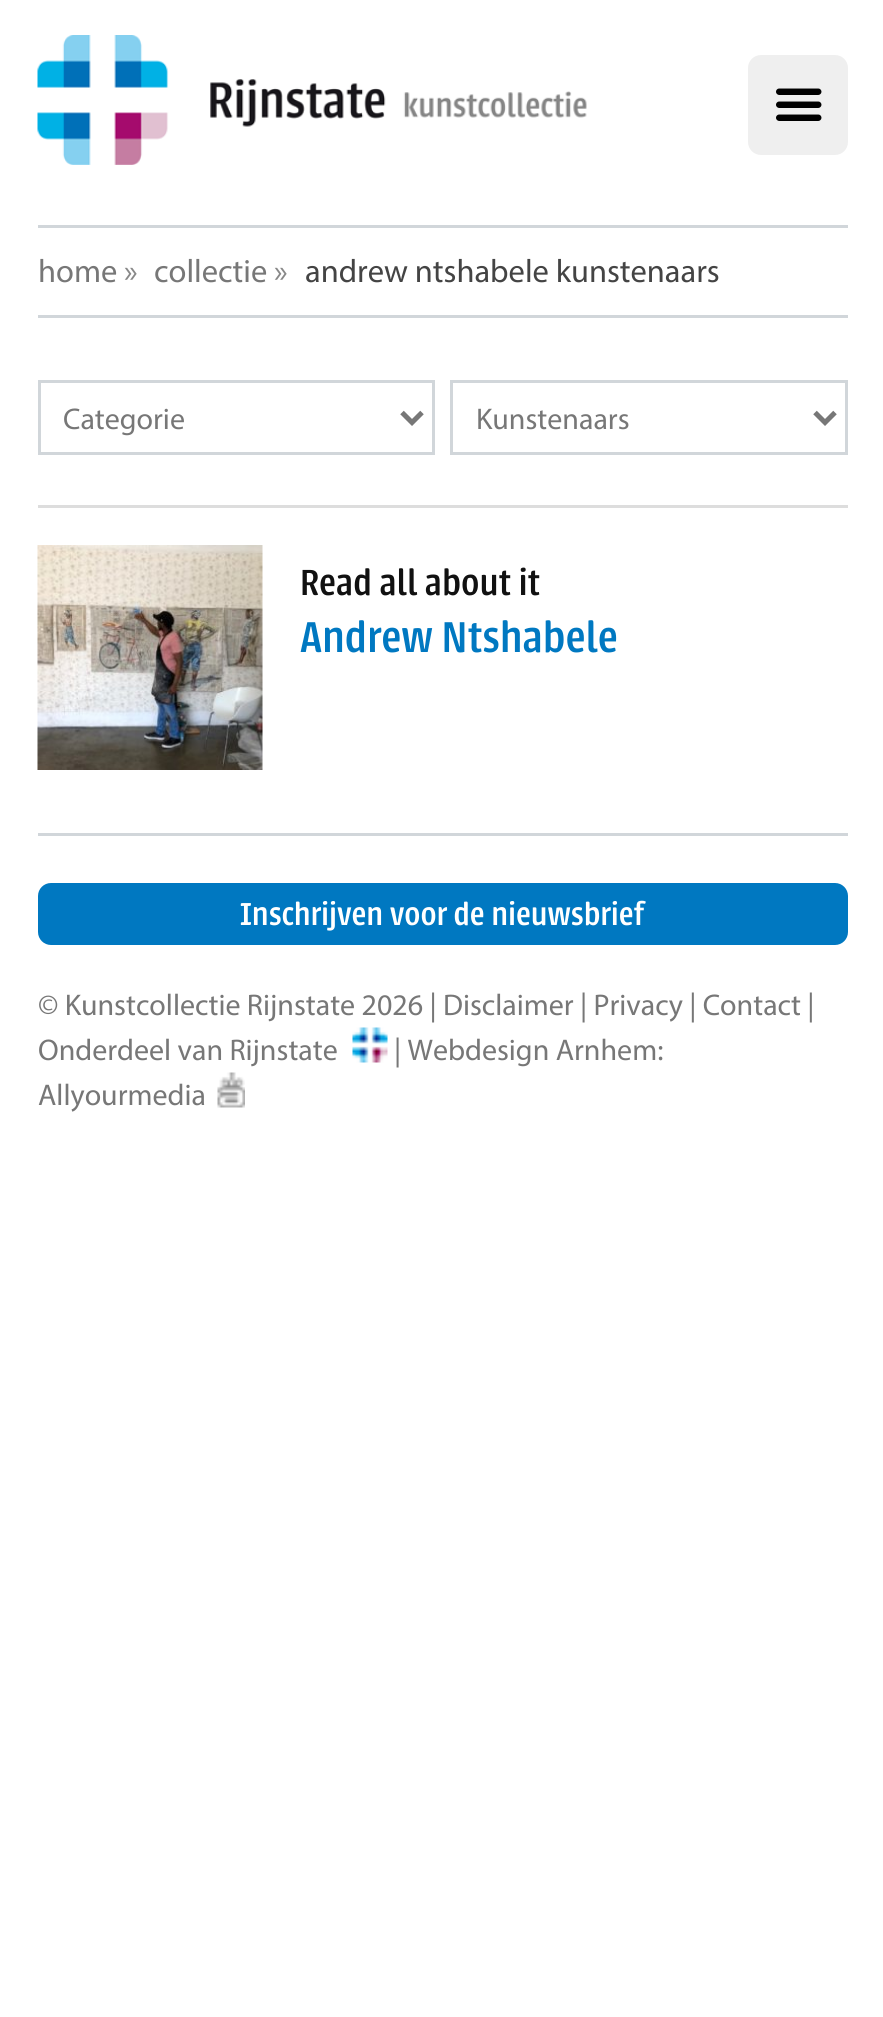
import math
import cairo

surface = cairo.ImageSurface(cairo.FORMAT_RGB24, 883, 2017)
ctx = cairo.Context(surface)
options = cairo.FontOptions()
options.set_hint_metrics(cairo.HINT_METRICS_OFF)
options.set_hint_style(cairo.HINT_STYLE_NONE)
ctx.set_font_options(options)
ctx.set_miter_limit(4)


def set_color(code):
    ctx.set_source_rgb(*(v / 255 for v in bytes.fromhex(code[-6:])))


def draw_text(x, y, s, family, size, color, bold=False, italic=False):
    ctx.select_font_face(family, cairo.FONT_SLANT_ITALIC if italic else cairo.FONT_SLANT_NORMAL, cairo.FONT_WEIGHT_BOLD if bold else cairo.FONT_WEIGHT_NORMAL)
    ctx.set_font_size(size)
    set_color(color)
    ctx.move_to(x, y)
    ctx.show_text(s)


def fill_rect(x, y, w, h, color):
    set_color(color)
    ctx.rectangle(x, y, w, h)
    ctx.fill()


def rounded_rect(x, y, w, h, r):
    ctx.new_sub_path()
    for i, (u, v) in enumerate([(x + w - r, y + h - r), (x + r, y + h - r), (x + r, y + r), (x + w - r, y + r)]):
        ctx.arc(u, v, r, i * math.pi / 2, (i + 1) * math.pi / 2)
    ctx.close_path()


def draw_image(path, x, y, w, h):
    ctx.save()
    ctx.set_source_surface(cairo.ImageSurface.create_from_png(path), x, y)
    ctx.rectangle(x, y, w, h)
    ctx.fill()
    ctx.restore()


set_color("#ffffff")
ctx.paint()
draw_image("assets/img1.png", 37, 35, 550, 130)
set_color("#efefef")
rounded_rect(748, 55, 100, 100, 13)
ctx.fill()
draw_image("assets/img2.png", 776, 88, 46, 33)
fill_rect(38, 225, 810, 3, "#d1d6da")
fill_rect(38, 315, 810, 3, "#d1d6da")
draw_text(38, 282, "home", "Myriad", 32.5, "#777777")
draw_text(124, 282, "»", "Myriad", 32.5, "#888888")
draw_text(154, 282, "collectie", "Myriad", 32.5, "#777777")
draw_text(274, 282, "»", "Myriad", 32.5, "#888888")
draw_text(305, 282, "andrew ntshabele kunstenaars", "Myriad", 32.5, "#444444")
ctx.rectangle(39.5, 381.5, 394, 72)
set_color("#d1d6da")
ctx.set_line_width(3)
ctx.stroke()
ctx.new_path()
ctx.move_to(402, 412.5)
ctx.line_to(412, 422.5)
ctx.line_to(422, 412.5)
set_color("#777777")
ctx.set_line_width(5)
ctx.stroke()
draw_text(63, 429, "Categorie", "Myriad", 30, "#777777")
ctx.rectangle(451.5, 381.5, 395, 72)
set_color("#d1d6da")
ctx.set_line_width(3)
ctx.stroke()
ctx.new_path()
ctx.move_to(815, 412.5)
ctx.line_to(825, 422.5)
ctx.line_to(835, 412.5)
set_color("#777777")
ctx.set_line_width(5)
ctx.stroke()
draw_text(476, 429, "Kunstenaars", "Myriad", 30, "#777777")
fill_rect(38, 505, 810, 3, "#dddddd")
draw_image("assets/img3.png", 37, 545, 226, 225)
draw_text(300, 595, "Read all about it", "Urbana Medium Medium", 40, "#111111")
draw_text(300, 652, "Andrew Ntshabele", "Urbana Medium Medium", 47.5, "#0078c1")
fill_rect(38, 833, 810, 3, "#d1d6da")
set_color("#0078c1")
rounded_rect(38, 883, 810, 62, 13)
ctx.fill()
draw_text(240, 925, "Inschrijven voor de nieuwsbrief", "Urbana Medium Medium", 35, "#ffffff")
draw_text(38, 1015, "© Kunstcollectie Rijnstate 2026 | Disclaimer | Privacy | Contact |", "Myriad", 30, "#777777")
draw_image("assets/img4.png", 352, 1027, 36, 36)
draw_text(38, 1060, "Onderdeel van Rijnstate", "Myriad", 30, "#777777")
draw_text(394, 1060, "| Webdesign Arnhem:", "Myriad", 30, "#777777")
draw_image("assets/img5.png", 217, 1072, 28, 36)
draw_text(38, 1105, "Allyourmedia", "Myriad", 30, "#777777")
surface.write_to_png("output.png")
